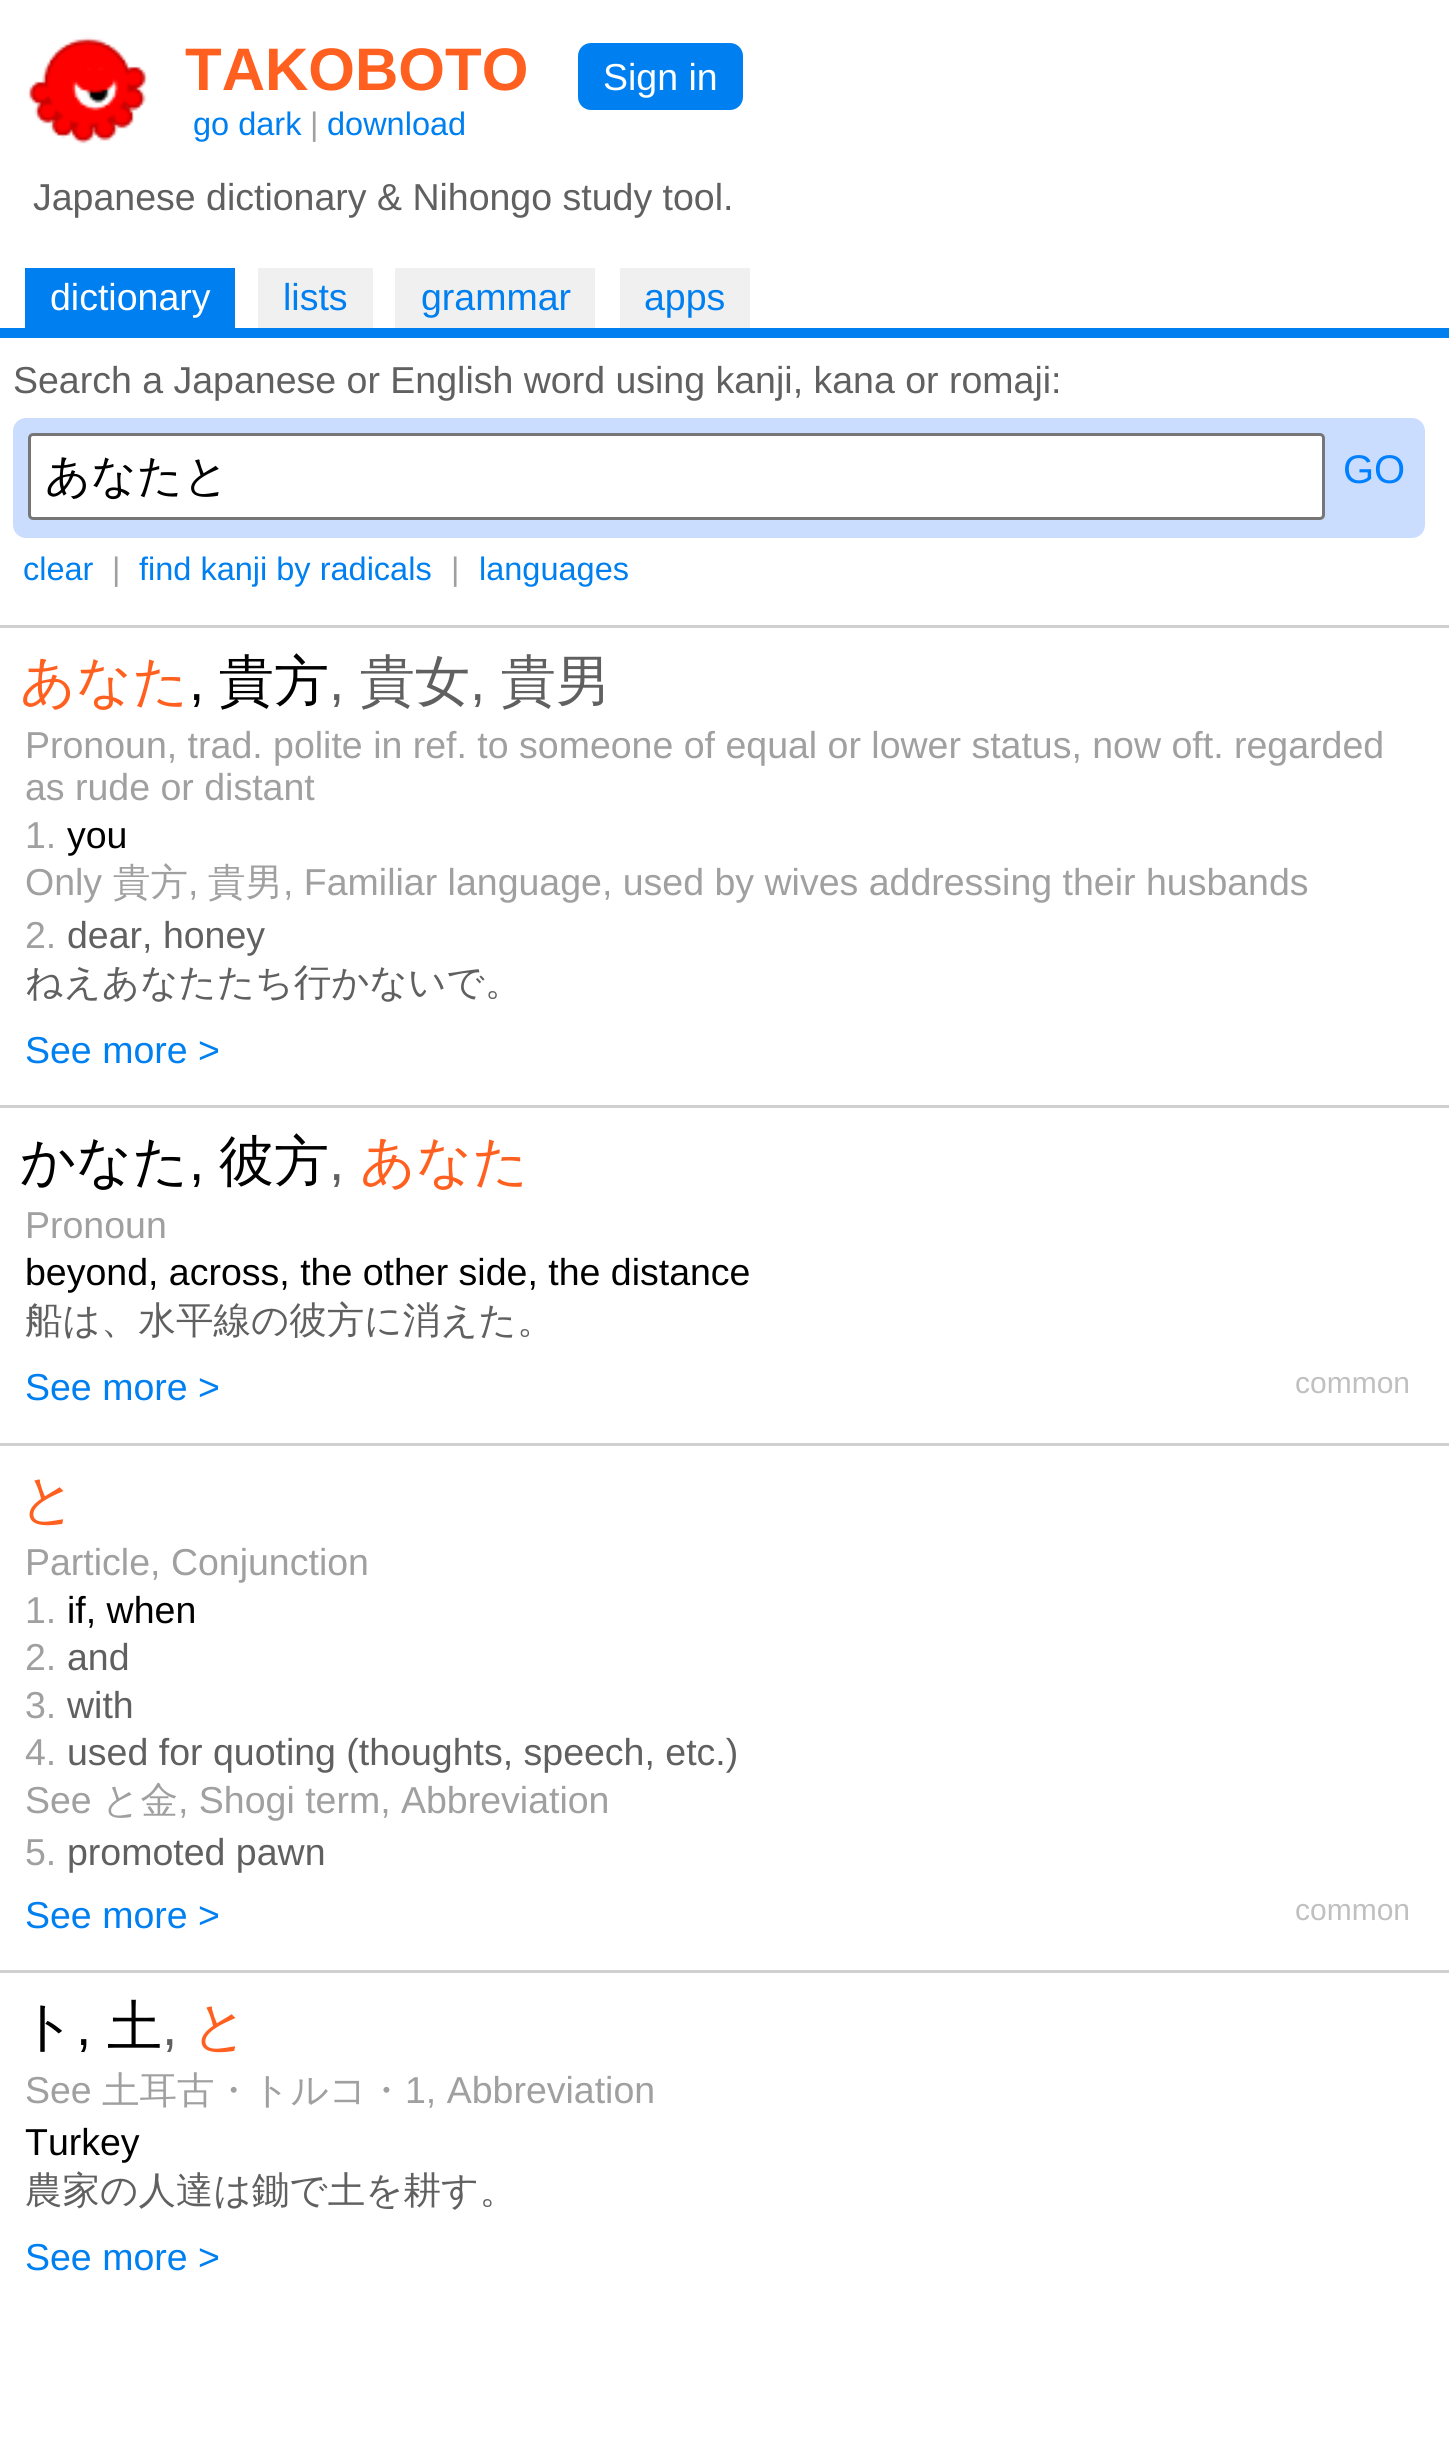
import math
import cairo

surface = cairo.ImageSurface(cairo.FORMAT_RGB24, 1449, 2444)
ctx = cairo.Context(surface)
options = cairo.FontOptions()
options.set_hint_metrics(cairo.HINT_METRICS_OFF)
options.set_hint_style(cairo.HINT_STYLE_NONE)
ctx.set_font_options(options)
ctx.set_miter_limit(4)


def set_color(code):
    ctx.set_source_rgb(*(v / 255 for v in bytes.fromhex(code[-6:])))


def draw_text(x, y, s, family, size, color, bold=False, italic=False):
    ctx.select_font_face(family, cairo.FONT_SLANT_ITALIC if italic else cairo.FONT_SLANT_NORMAL, cairo.FONT_WEIGHT_BOLD if bold else cairo.FONT_WEIGHT_NORMAL)
    ctx.set_font_size(size)
    set_color(color)
    ctx.move_to(x, y)
    ctx.show_text(s)


def fill_rect(x, y, w, h, color):
    set_color(color)
    ctx.rectangle(x, y, w, h)
    ctx.fill()


def rounded_rect(x, y, w, h, r):
    ctx.new_sub_path()
    for i, (u, v) in enumerate([(x + w - r, y + h - r), (x + r, y + h - r), (x + r, y + r), (x + w - r, y + r)]):
        ctx.arc(u, v, r, i * math.pi / 2, (i + 1) * math.pi / 2)
    ctx.close_path()


def draw_image(path, x, y, w, h):
    ctx.save()
    ctx.set_source_surface(cairo.ImageSurface.create_from_png(path), x, y)
    ctx.rectangle(x, y, w, h)
    ctx.fill()
    ctx.restore()


set_color("#ffffff")
ctx.paint()
fill_rect(0, 328, 1449, 10, "#0080f0")
draw_image("assets/img1.png", 27, 37, 121, 107)
draw_text(185, 90, "TAKOBOTO", "Liberation Sans", 60, "#ff6020", bold=True)
draw_text(193, 135, "go dark", "Liberation Sans", 32.5, "#0080f0")
draw_text(310, 135, "|", "Liberation Sans", 32.5, "#a0a0a0")
draw_text(327, 135, "download", "Liberation Sans", 32.5, "#0080f0")
rounded_rect(578, 43, 165, 67, 13)
ctx.fill()
draw_text(603, 90, "Sign in", "Liberation Sans", 37.5, "#ffffff")
draw_text(33, 210, "Japanese dictionary & Nihongo study tool.", "Liberation Sans", 37.5, "#606060")
fill_rect(25, 268, 210, 60, "#0080f0")
draw_text(50, 310, "dictionary", "Liberation Sans", 37.5, "#ffffff")
fill_rect(258, 268, 115, 60, "#f0f0f0")
draw_text(283, 310, "lists", "Liberation Sans", 37.5, "#0080f0")
fill_rect(395, 268, 200, 60, "#f0f0f0")
draw_text(421, 310, "grammar", "Liberation Sans", 37.5, "#0080f0")
fill_rect(620, 268, 130, 60, "#f0f0f0")
draw_text(644, 310, "apps", "Liberation Sans", 37.5, "#0080f0")
draw_text(13, 393, "Search a Japanese or English word using kanji, kana or romaji:", "Liberation Sans", 37.5, "#606060")
set_color("#caddff")
rounded_rect(13, 418, 1412, 120, 13)
ctx.fill()
set_color("#ffffff")
rounded_rect(29.5, 434.5, 1294, 84, 3.5)
ctx.fill_preserve()
set_color("#767676")
ctx.set_line_width(3)
ctx.stroke()
draw_text(45, 491, "あなたと", "WenQuanYi Zen Hei Medium", 45, "#000000")
draw_text(1343, 483, "GO", "Liberation Sans", 40, "#0080ff")
draw_text(23, 580, "clear", "Liberation Sans", 32.5, "#0080f0")
draw_text(112, 580, "|", "Liberation Sans", 32.5, "#a0a0a0")
draw_text(139, 580, "find kanji by radicals", "Liberation Sans", 32.5, "#0080f0")
draw_text(451, 580, "|", "Liberation Sans", 32.5, "#a0a0a0")
draw_text(479, 580, "languages", "Liberation Sans", 32.5, "#0080f0")
fill_rect(0, 625, 1449, 3, "#d0d0d0")
draw_text(20, 700, "あなた", "WenQuanYi Zen Hei Medium", 55, "#ff6020")
draw_text(189, 700, ",", "Liberation Sans", 55, "#000000")
draw_text(219, 700, "貴方", "WenQuanYi Zen Hei Medium", 55, "#000000")
draw_text(329, 700, ",", "Liberation Sans", 55, "#606060")
draw_text(360, 700, "貴女", "WenQuanYi Zen Hei Medium", 55, "#606060")
draw_text(470, 700, ",", "Liberation Sans", 55, "#606060")
draw_text(501, 700, "貴男", "WenQuanYi Zen Hei Medium", 55, "#606060")
draw_text(25, 758, "Pronoun, trad. polite in ref. to someone of equal or lower status, now oft. regarded", "Liberation Sans", 37.5, "#a0a0a0")
draw_text(25, 800, "as rude or distant", "Liberation Sans", 37.5, "#a0a0a0")
draw_text(25, 848, "1.", "Liberation Sans", 37.5, "#a0a0a0")
draw_text(67, 848, "you", "Liberation Sans", 37.5, "#000000")
draw_text(25, 895, "Only", "Liberation Sans", 37.5, "#a0a0a0")
draw_text(113, 895, "貴方", "WenQuanYi Zen Hei Medium", 37.5, "#a0a0a0")
draw_text(188, 895, ",", "Liberation Sans", 37.5, "#a0a0a0")
draw_text(208, 895, "貴男", "WenQuanYi Zen Hei Medium", 37.5, "#a0a0a0")
draw_text(283, 895, ", Familiar language, used by wives addressing their husbands", "Liberation Sans", 37.5, "#a0a0a0")
draw_text(25, 948, "2.", "Liberation Sans", 37.5, "#a0a0a0")
draw_text(67, 948, "dear, honey", "Liberation Sans", 37.5, "#606060")
draw_text(25, 995, "ねえあなたたち行かないで。", "WenQuanYi Zen Hei Medium", 37.5, "#606060")
draw_text(25, 1063, "See more >", "Liberation Sans", 37.5, "#0080f0")
fill_rect(0, 1105, 1449, 3, "#d0d0d0")
draw_text(20, 1180, "かなた", "WenQuanYi Zen Hei Medium", 55, "#000000")
draw_text(189, 1180, ",", "Liberation Sans", 55, "#000000")
draw_text(219, 1180, "彼方", "WenQuanYi Zen Hei Medium", 55, "#000000")
draw_text(329, 1180, ",", "Liberation Sans", 55, "#606060")
draw_text(360, 1180, "あなた", "WenQuanYi Zen Hei Medium", 55, "#ff6020")
draw_text(25, 1238, "Pronoun", "Liberation Sans", 37.5, "#a0a0a0")
draw_text(25, 1285, "beyond, across, the other side, the distance", "Liberation Sans", 37.5, "#000000")
draw_text(25, 1333, "船は、水平線の彼方に消えた。", "WenQuanYi Zen Hei Medium", 37.5, "#606060")
draw_text(25, 1400, "See more >", "Liberation Sans", 37.5, "#0080f0")
draw_text(1295, 1393, "common", "Liberation Sans", 30, "#c0c0c0")
fill_rect(0, 1443, 1449, 3, "#d0d0d0")
draw_text(20, 1518, "と", "WenQuanYi Zen Hei Medium", 55, "#ff6020")
draw_text(25, 1575, "Particle, Conjunction", "Liberation Sans", 37.5, "#a0a0a0")
draw_text(25, 1623, "1.", "Liberation Sans", 37.5, "#a0a0a0")
draw_text(67, 1623, "if, when", "Liberation Sans", 37.5, "#000000")
draw_text(25, 1670, "2.", "Liberation Sans", 37.5, "#a0a0a0")
draw_text(67, 1670, "and", "Liberation Sans", 37.5, "#606060")
draw_text(25, 1718, "3.", "Liberation Sans", 37.5, "#a0a0a0")
draw_text(67, 1718, "with", "Liberation Sans", 37.5, "#606060")
draw_text(25, 1765, "4.", "Liberation Sans", 37.5, "#a0a0a0")
draw_text(67, 1765, "used for quoting (thoughts, speech, etc.)", "Liberation Sans", 37.5, "#606060")
draw_text(25, 1813, "See", "Liberation Sans", 37.5, "#a0a0a0")
draw_text(102, 1813, "と金", "WenQuanYi Zen Hei Medium", 37.5, "#a0a0a0")
draw_text(178, 1813, ", Shogi term, Abbreviation", "Liberation Sans", 37.5, "#a0a0a0")
draw_text(25, 1865, "5.", "Liberation Sans", 37.5, "#a0a0a0")
draw_text(67, 1865, "promoted pawn", "Liberation Sans", 37.5, "#606060")
draw_text(25, 1928, "See more >", "Liberation Sans", 37.5, "#0080f0")
draw_text(1295, 1920, "common", "Liberation Sans", 30, "#c0c0c0")
fill_rect(0, 1970, 1449, 3, "#d0d0d0")
draw_text(20, 2045, "ト", "WenQuanYi Zen Hei Medium", 55, "#000000")
draw_text(76, 2045, ",", "Liberation Sans", 55, "#000000")
draw_text(107, 2045, "土", "WenQuanYi Zen Hei Medium", 55, "#000000")
draw_text(162, 2045, ",", "Liberation Sans", 55, "#606060")
draw_text(192, 2045, "と", "WenQuanYi Zen Hei Medium", 55, "#ff6020")
draw_text(25, 2103, "See", "Liberation Sans", 37.5, "#a0a0a0")
draw_text(102, 2103, "土耳古・トルコ・", "WenQuanYi Zen Hei Medium", 37.5, "#a0a0a0")
draw_text(405, 2103, "1, Abbreviation", "Liberation Sans", 37.5, "#a0a0a0")
draw_text(25, 2155, "Turkey", "Liberation Sans", 37.5, "#000000")
draw_text(25, 2203, "農家の人達は鋤で土を耕す。", "WenQuanYi Zen Hei Medium", 37.5, "#606060")
draw_text(25, 2270, "See more >", "Liberation Sans", 37.5, "#0080f0")
surface.write_to_png("output.png")
